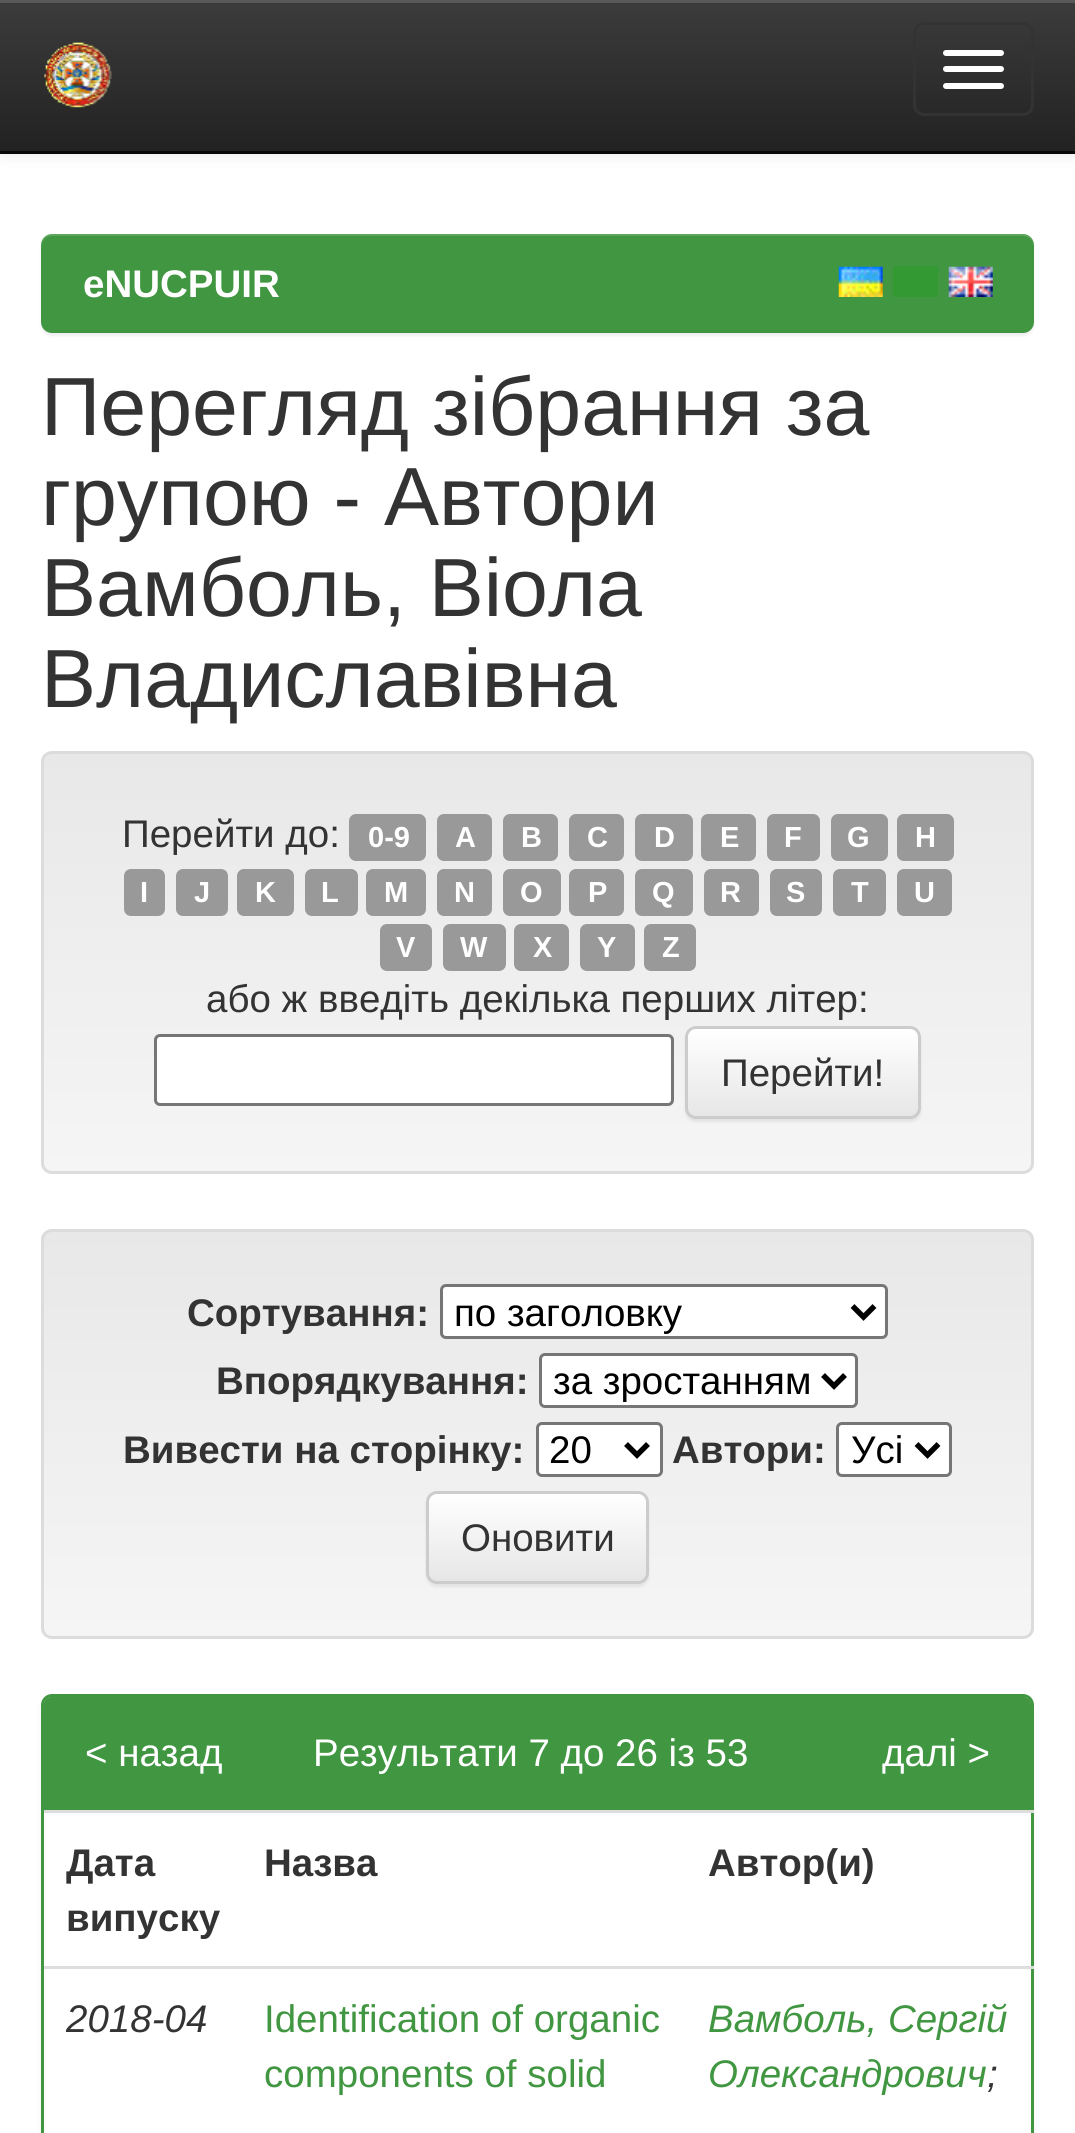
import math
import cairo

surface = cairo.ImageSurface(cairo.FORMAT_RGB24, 1075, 2133)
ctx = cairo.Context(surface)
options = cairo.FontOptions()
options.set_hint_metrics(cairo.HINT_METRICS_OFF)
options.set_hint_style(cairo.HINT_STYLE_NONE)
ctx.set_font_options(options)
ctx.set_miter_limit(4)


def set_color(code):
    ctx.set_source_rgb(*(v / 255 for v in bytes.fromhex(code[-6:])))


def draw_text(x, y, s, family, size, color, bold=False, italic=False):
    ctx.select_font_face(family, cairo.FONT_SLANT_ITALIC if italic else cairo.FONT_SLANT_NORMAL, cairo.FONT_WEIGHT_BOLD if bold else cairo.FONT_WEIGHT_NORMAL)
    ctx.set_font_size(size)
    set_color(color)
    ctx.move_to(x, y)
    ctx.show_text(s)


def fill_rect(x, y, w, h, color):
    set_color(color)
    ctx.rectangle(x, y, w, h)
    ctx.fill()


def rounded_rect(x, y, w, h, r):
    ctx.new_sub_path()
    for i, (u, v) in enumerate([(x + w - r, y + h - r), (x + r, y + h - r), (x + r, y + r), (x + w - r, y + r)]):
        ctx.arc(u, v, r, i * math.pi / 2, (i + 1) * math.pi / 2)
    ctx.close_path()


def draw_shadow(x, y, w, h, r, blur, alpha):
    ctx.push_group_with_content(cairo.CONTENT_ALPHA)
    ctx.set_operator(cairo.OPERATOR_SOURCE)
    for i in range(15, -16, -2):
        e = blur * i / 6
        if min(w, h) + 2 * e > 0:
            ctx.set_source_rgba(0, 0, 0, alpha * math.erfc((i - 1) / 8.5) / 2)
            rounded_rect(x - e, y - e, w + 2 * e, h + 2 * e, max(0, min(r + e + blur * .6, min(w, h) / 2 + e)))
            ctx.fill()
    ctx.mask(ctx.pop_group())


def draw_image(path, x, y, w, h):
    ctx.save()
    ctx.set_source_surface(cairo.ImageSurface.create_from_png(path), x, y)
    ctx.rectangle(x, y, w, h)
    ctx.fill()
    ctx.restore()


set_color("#ffffff")
ctx.paint()
set_color("#000000")
draw_shadow(0, 3, 1075, 154, 0, 7, 0.07)
gradient = cairo.LinearGradient(538, 0, 538, 151)
gradient.add_color_stop_rgba(0, 0.235, 0.235, 0.235, 1)
gradient.add_color_stop_rgba(1, 0.133, 0.133, 0.133, 1)
ctx.set_source(gradient)
ctx.rectangle(0, 3, 1075, 148)
ctx.fill()
fill_rect(0, 0, 1075, 3, "#595959")
fill_rect(0, 151, 1075, 3, "#080808")
draw_image("assets/img1.png", 44, 42, 68, 66)
rounded_rect(914.5, 23.5, 118, 91, 9.5)
set_color("#333333")
ctx.set_line_width(3)
ctx.stroke()
set_color("#ffffff")
rounded_rect(943, 50, 61, 6, 3)
ctx.fill()
rounded_rect(943, 66, 61, 6, 3)
ctx.fill()
rounded_rect(943, 83, 61, 6, 3)
ctx.fill()
set_color("#000000")
draw_shadow(41, 237, 993, 99, 11, 1.5, 0.07)
set_color("#419641")
rounded_rect(41, 234, 993, 99, 11)
ctx.fill()
ctx.set_source_rgba(1, 1, 1, 0.15)
ctx.new_path()
ctx.move_to(52, 236)
ctx.line_to(1023, 236)
ctx.curve_to(1029, 236, 1034, 241, 1034, 248)
ctx.line_to(1034, 245)
ctx.curve_to(1034, 239, 1029, 234, 1023, 234)
ctx.line_to(52, 234)
ctx.curve_to(46, 234, 41, 239, 41, 245)
ctx.line_to(41, 248)
ctx.curve_to(41, 241, 46, 236, 52, 236)
ctx.close_path()
ctx.fill()
draw_text(83, 297, "eNUCPUIR", "Liberation Sans", 38.5, "#ffffff", bold=True)
draw_image("assets/img2.png", 838, 266, 45, 31)
fill_rect(893, 266, 45, 31, "#339933")
draw_image("assets/img3.png", 948, 266, 45, 31)
draw_text(41, 435, "Перегляд зібрання за", "Liberation Sans", 82.5, "#333333")
draw_text(41, 525, "групою - Автори", "Liberation Sans", 82.5, "#333333")
draw_text(41, 616, "Вамболь, Віола", "Liberation Sans", 82.5, "#333333")
draw_text(41, 707, "Владиславівна", "Liberation Sans", 82.5, "#333333")
ctx.save()
rounded_rect(41, 751, 993, 423, 11)
ctx.clip()
gradient = cairo.LinearGradient(538, 754, 538, 1172)
gradient.add_color_stop_rgba(0, 0.91, 0.91, 0.91, 1)
gradient.add_color_stop_rgba(1, 0.961, 0.961, 0.961, 1)
ctx.set_source(gradient)
ctx.rectangle(41, 754, 993, 418)
ctx.fill()
ctx.restore()
rounded_rect(42.5, 752.5, 990, 420, 9.5)
set_color("#dcdcdc")
ctx.stroke()
draw_text(122, 847, "Перейти до:", "Liberation Sans", 38.5, "#333333")
set_color("#999999")
rounded_rect(349, 814, 77, 47, 7)
ctx.fill()
draw_text(368, 847, "0-9", "Liberation Sans", 29, "#ffffff", bold=True)
set_color("#999999")
rounded_rect(437, 814, 55, 47, 7)
ctx.fill()
draw_text(455, 847, "A", "Liberation Sans", 29, "#ffffff", bold=True)
set_color("#999999")
rounded_rect(503, 814, 55, 47, 7)
ctx.fill()
draw_text(521, 847, "B", "Liberation Sans", 29, "#ffffff", bold=True)
set_color("#999999")
rounded_rect(569, 814, 55, 47, 7)
ctx.fill()
draw_text(587, 847, "C", "Liberation Sans", 29, "#ffffff", bold=True)
set_color("#999999")
rounded_rect(635, 814, 58, 47, 7)
ctx.fill()
draw_text(654, 847, "D", "Liberation Sans", 29, "#ffffff", bold=True)
set_color("#999999")
rounded_rect(701, 814, 55, 47, 7)
ctx.fill()
draw_text(720, 847, "E", "Liberation Sans", 29, "#ffffff", bold=True)
set_color("#999999")
rounded_rect(767, 814, 53, 47, 7)
ctx.fill()
draw_text(784, 847, "F", "Liberation Sans", 29, "#ffffff", bold=True)
set_color("#999999")
rounded_rect(831, 814, 57, 47, 7)
ctx.fill()
draw_text(847, 847, "G", "Liberation Sans", 29, "#ffffff", bold=True)
set_color("#999999")
rounded_rect(897, 814, 57, 47, 7)
ctx.fill()
draw_text(915, 847, "H", "Liberation Sans", 29, "#ffffff", bold=True)
set_color("#999999")
rounded_rect(124, 869, 41, 47, 7)
ctx.fill()
draw_text(140, 902, "I", "Liberation Sans", 29, "#ffffff", bold=True)
set_color("#999999")
rounded_rect(176, 869, 52, 47, 7)
ctx.fill()
draw_text(194, 902, "J", "Liberation Sans", 29, "#ffffff", bold=True)
set_color("#999999")
rounded_rect(237, 869, 57, 47, 7)
ctx.fill()
draw_text(255, 902, "K", "Liberation Sans", 29, "#ffffff", bold=True)
set_color("#999999")
rounded_rect(305, 869, 53, 47, 7)
ctx.fill()
draw_text(321, 902, "L", "Liberation Sans", 29, "#ffffff", bold=True)
set_color("#999999")
rounded_rect(366, 869, 60, 47, 7)
ctx.fill()
draw_text(384, 902, "M", "Liberation Sans", 29, "#ffffff", bold=True)
set_color("#999999")
rounded_rect(437, 869, 55, 47, 7)
ctx.fill()
draw_text(454, 902, "N", "Liberation Sans", 29, "#ffffff", bold=True)
set_color("#999999")
rounded_rect(503, 869, 58, 47, 7)
ctx.fill()
draw_text(520, 902, "O", "Liberation Sans", 29, "#ffffff", bold=True)
set_color("#999999")
rounded_rect(569, 869, 55, 47, 7)
ctx.fill()
draw_text(588, 902, "P", "Liberation Sans", 29, "#ffffff", bold=True)
set_color("#999999")
rounded_rect(635, 869, 58, 47, 7)
ctx.fill()
draw_text(652, 902, "Q", "Liberation Sans", 29, "#ffffff", bold=True)
set_color("#999999")
rounded_rect(704, 869, 55, 47, 7)
ctx.fill()
draw_text(720, 902, "R", "Liberation Sans", 29, "#ffffff", bold=True)
set_color("#999999")
rounded_rect(770, 869, 52, 47, 7)
ctx.fill()
draw_text(786, 902, "S", "Liberation Sans", 29, "#ffffff", bold=True)
set_color("#999999")
rounded_rect(833, 869, 53, 47, 7)
ctx.fill()
draw_text(851, 902, "T", "Liberation Sans", 29, "#ffffff", bold=True)
set_color("#999999")
rounded_rect(897, 869, 55, 47, 7)
ctx.fill()
draw_text(914, 902, "U", "Liberation Sans", 29, "#ffffff", bold=True)
set_color("#999999")
rounded_rect(380, 924, 52, 47, 7)
ctx.fill()
draw_text(396, 957, "V", "Liberation Sans", 29, "#ffffff", bold=True)
set_color("#999999")
rounded_rect(443, 924, 63, 47, 7)
ctx.fill()
draw_text(460, 957, "W", "Liberation Sans", 29, "#ffffff", bold=True)
set_color("#999999")
rounded_rect(514, 924, 55, 47, 7)
ctx.fill()
draw_text(533, 957, "X", "Liberation Sans", 29, "#ffffff", bold=True)
set_color("#999999")
rounded_rect(580, 924, 55, 47, 7)
ctx.fill()
draw_text(597, 957, "Y", "Liberation Sans", 29, "#ffffff", bold=True)
set_color("#999999")
rounded_rect(644, 924, 52, 47, 7)
ctx.fill()
draw_text(662, 957, "Z", "Liberation Sans", 29, "#ffffff", bold=True)
draw_text(206, 1012, "або ж введіть декілька перших літер:", "Liberation Sans", 38.5, "#333333")
set_color("#ffffff")
rounded_rect(155.5, 1035.5, 517, 69, 4.5)
ctx.fill_preserve()
set_color("#767676")
ctx.stroke()
set_color("#000000")
draw_shadow(685, 1029, 236, 93, 11, 1.5, 0.07)
ctx.save()
rounded_rect(685, 1026, 236, 93, 11)
ctx.clip()
gradient = cairo.LinearGradient(803, 1029, 803, 1117)
gradient.add_color_stop_rgba(0, 1, 1, 1, 1)
gradient.add_color_stop_rgba(1, 0.902, 0.902, 0.902, 1)
ctx.set_source(gradient)
ctx.rectangle(685, 1029, 236, 88)
ctx.fill()
ctx.restore()
ctx.set_source_rgba(1, 1, 1, 0.15)
ctx.new_path()
ctx.move_to(696, 1031)
ctx.line_to(910, 1031)
ctx.curve_to(920, 1031, 918, 1046, 918, 1052)
ctx.line_to(918, 1113)
ctx.curve_to(919, 1112, 919, 1111, 919, 1109)
ctx.line_to(919, 1037)
ctx.curve_to(919, 1033, 915, 1029, 911, 1029)
ctx.line_to(696, 1029)
ctx.curve_to(692, 1029, 688, 1033, 688, 1037)
ctx.line_to(688, 1040)
ctx.curve_to(688, 1035, 691, 1031, 696, 1031)
ctx.close_path()
ctx.fill()
rounded_rect(686.5, 1027.5, 233, 90, 9.5)
set_color("#cccccc")
ctx.stroke()
draw_text(721, 1086, "Перейти!", "Liberation Sans", 38.5, "#333333")
ctx.save()
rounded_rect(41, 1229, 993, 410, 11)
ctx.clip()
gradient = cairo.LinearGradient(538, 1232, 538, 1636)
gradient.add_color_stop_rgba(0, 0.91, 0.91, 0.91, 1)
gradient.add_color_stop_rgba(1, 0.961, 0.961, 0.961, 1)
ctx.set_source(gradient)
ctx.rectangle(41, 1232, 993, 404)
ctx.fill()
ctx.restore()
rounded_rect(42.5, 1230.5, 990, 407, 9.5)
set_color("#dcdcdc")
ctx.stroke()
draw_text(187, 1326, "Сортування:", "Liberation Sans", 38.5, "#333333", bold=True)
set_color("#ffffff")
rounded_rect(441.5, 1285.5, 445, 52, 4.5)
ctx.fill_preserve()
set_color("#767676")
ctx.stroke()
ctx.new_path()
ctx.move_to(852.5, 1306)
ctx.line_to(863.5, 1317)
ctx.line_to(874.5, 1306)
set_color("#000000")
ctx.set_line_width(5.5)
ctx.stroke()
draw_text(454, 1326, "по заголовку", "Liberation Sans", 38.5, "#000000")
draw_text(216, 1394, "Впорядкування:", "Liberation Sans", 38.5, "#333333", bold=True)
set_color("#ffffff")
rounded_rect(540.5, 1354.5, 316, 52, 4.5)
ctx.fill_preserve()
set_color("#767676")
ctx.set_line_width(3)
ctx.stroke()
ctx.new_path()
ctx.move_to(823, 1375)
ctx.line_to(834, 1386)
ctx.line_to(845, 1375)
set_color("#000000")
ctx.set_line_width(5.5)
ctx.stroke()
draw_text(553, 1394, "за зростанням", "Liberation Sans", 38.5, "#000000")
draw_text(123, 1463, "Вивести на сторінку:", "Liberation Sans", 38.5, "#333333", bold=True)
set_color("#ffffff")
rounded_rect(537.5, 1423.5, 124, 52, 4.5)
ctx.fill_preserve()
set_color("#767676")
ctx.set_line_width(3)
ctx.stroke()
ctx.new_path()
ctx.move_to(626, 1444)
ctx.line_to(637, 1455)
ctx.line_to(648, 1444)
set_color("#000000")
ctx.set_line_width(5.5)
ctx.stroke()
draw_text(549, 1463, "20", "Liberation Sans", 38.5, "#000000")
draw_text(672, 1463, "Автори:", "Liberation Sans", 38.5, "#333333", bold=True)
set_color("#ffffff")
rounded_rect(837.5, 1423.5, 113, 52, 4.5)
ctx.fill_preserve()
set_color("#767676")
ctx.set_line_width(3)
ctx.stroke()
ctx.new_path()
ctx.move_to(916.5, 1444)
ctx.line_to(927.5, 1455)
ctx.line_to(938.5, 1444)
set_color("#000000")
ctx.set_line_width(5.5)
ctx.stroke()
draw_text(851, 1463, "Усі", "Liberation Sans", 38.5, "#000000")
set_color("#000000")
draw_shadow(426, 1493, 223, 94, 11, 1.5, 0.07)
ctx.save()
rounded_rect(426, 1491, 223, 93, 11)
ctx.clip()
gradient = cairo.LinearGradient(538, 1493, 538, 1581)
gradient.add_color_stop_rgba(0, 1, 1, 1, 1)
gradient.add_color_stop_rgba(1, 0.902, 0.902, 0.902, 1)
ctx.set_source(gradient)
ctx.rectangle(426, 1493, 223, 88)
ctx.fill()
ctx.restore()
rounded_rect(427.5, 1492.5, 220, 90, 9.5)
set_color("#cccccc")
ctx.set_line_width(3)
ctx.stroke()
draw_text(461, 1551, "Оновити", "Liberation Sans", 38.5, "#333333")
set_color("#000000")
draw_shadow(41, 1697, 993, 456, 11, 3, 0.05)
set_color("#ffffff")
rounded_rect(42.5, 1695.5, 990, 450, 9.5)
ctx.fill_preserve()
set_color("#419641")
ctx.stroke()
ctx.new_path()
ctx.move_to(52, 1697)
ctx.line_to(1023, 1697)
ctx.curve_to(1027.5, 1697, 1031, 1700.5, 1031, 1705)
ctx.line_to(1031, 1810)
ctx.line_to(44, 1810)
ctx.line_to(44, 1705)
ctx.curve_to(44, 1700.5, 47.5, 1697, 52, 1697)
ctx.close_path()
ctx.fill()
ctx.new_path()
ctx.move_to(52, 1697)
ctx.line_to(1023, 1697)
ctx.curve_to(1027.5, 1697, 1031, 1700.5, 1031, 1705)
ctx.line_to(1031, 1807)
ctx.line_to(44, 1807)
ctx.line_to(44, 1705)
ctx.curve_to(44, 1700.5, 47.5, 1697, 52, 1697)
ctx.close_path()
ctx.fill()
draw_text(85, 1766, "< назад", "Liberation Sans", 38.5, "#ffffff")
draw_text(313, 1766, "Результати 7 до 26 із 53", "Liberation Sans", 38.5, "#ffffff")
draw_text(882, 1766, "далі >", "Liberation Sans", 38.5, "#ffffff")
draw_text(66, 1876, "Дата", "Liberation Sans", 38.5, "#333333", bold=True)
draw_text(66, 1931, "випуску", "Liberation Sans", 38.5, "#333333", bold=True)
draw_text(264, 1876, "Назва", "Liberation Sans", 38.5, "#333333", bold=True)
fill_rect(44, 1810, 990, 3, "#dddddd")
draw_text(708, 1876, "Автор(и)", "Liberation Sans", 38.5, "#333333", bold=True)
draw_text(66, 2032, "2018-04", "Liberation Sans", 38.5, "#333333", italic=True)
draw_text(264, 2032, "Identification of organic", "Liberation Sans", 38.5, "#419641")
draw_text(264, 2087, "components of solid", "Liberation Sans", 38.5, "#419641")
fill_rect(44, 1966, 990, 3, "#dddddd")
draw_text(708, 2032, "Вамболь, Сергій", "Liberation Sans", 38.5, "#419641", italic=True)
draw_text(708, 2087, "Олександрович", "Liberation Sans", 38.5, "#419641", italic=True)
draw_text(987, 2087, ";", "Liberation Sans", 38.5, "#333333", italic=True)
surface.write_to_png("output.png")
